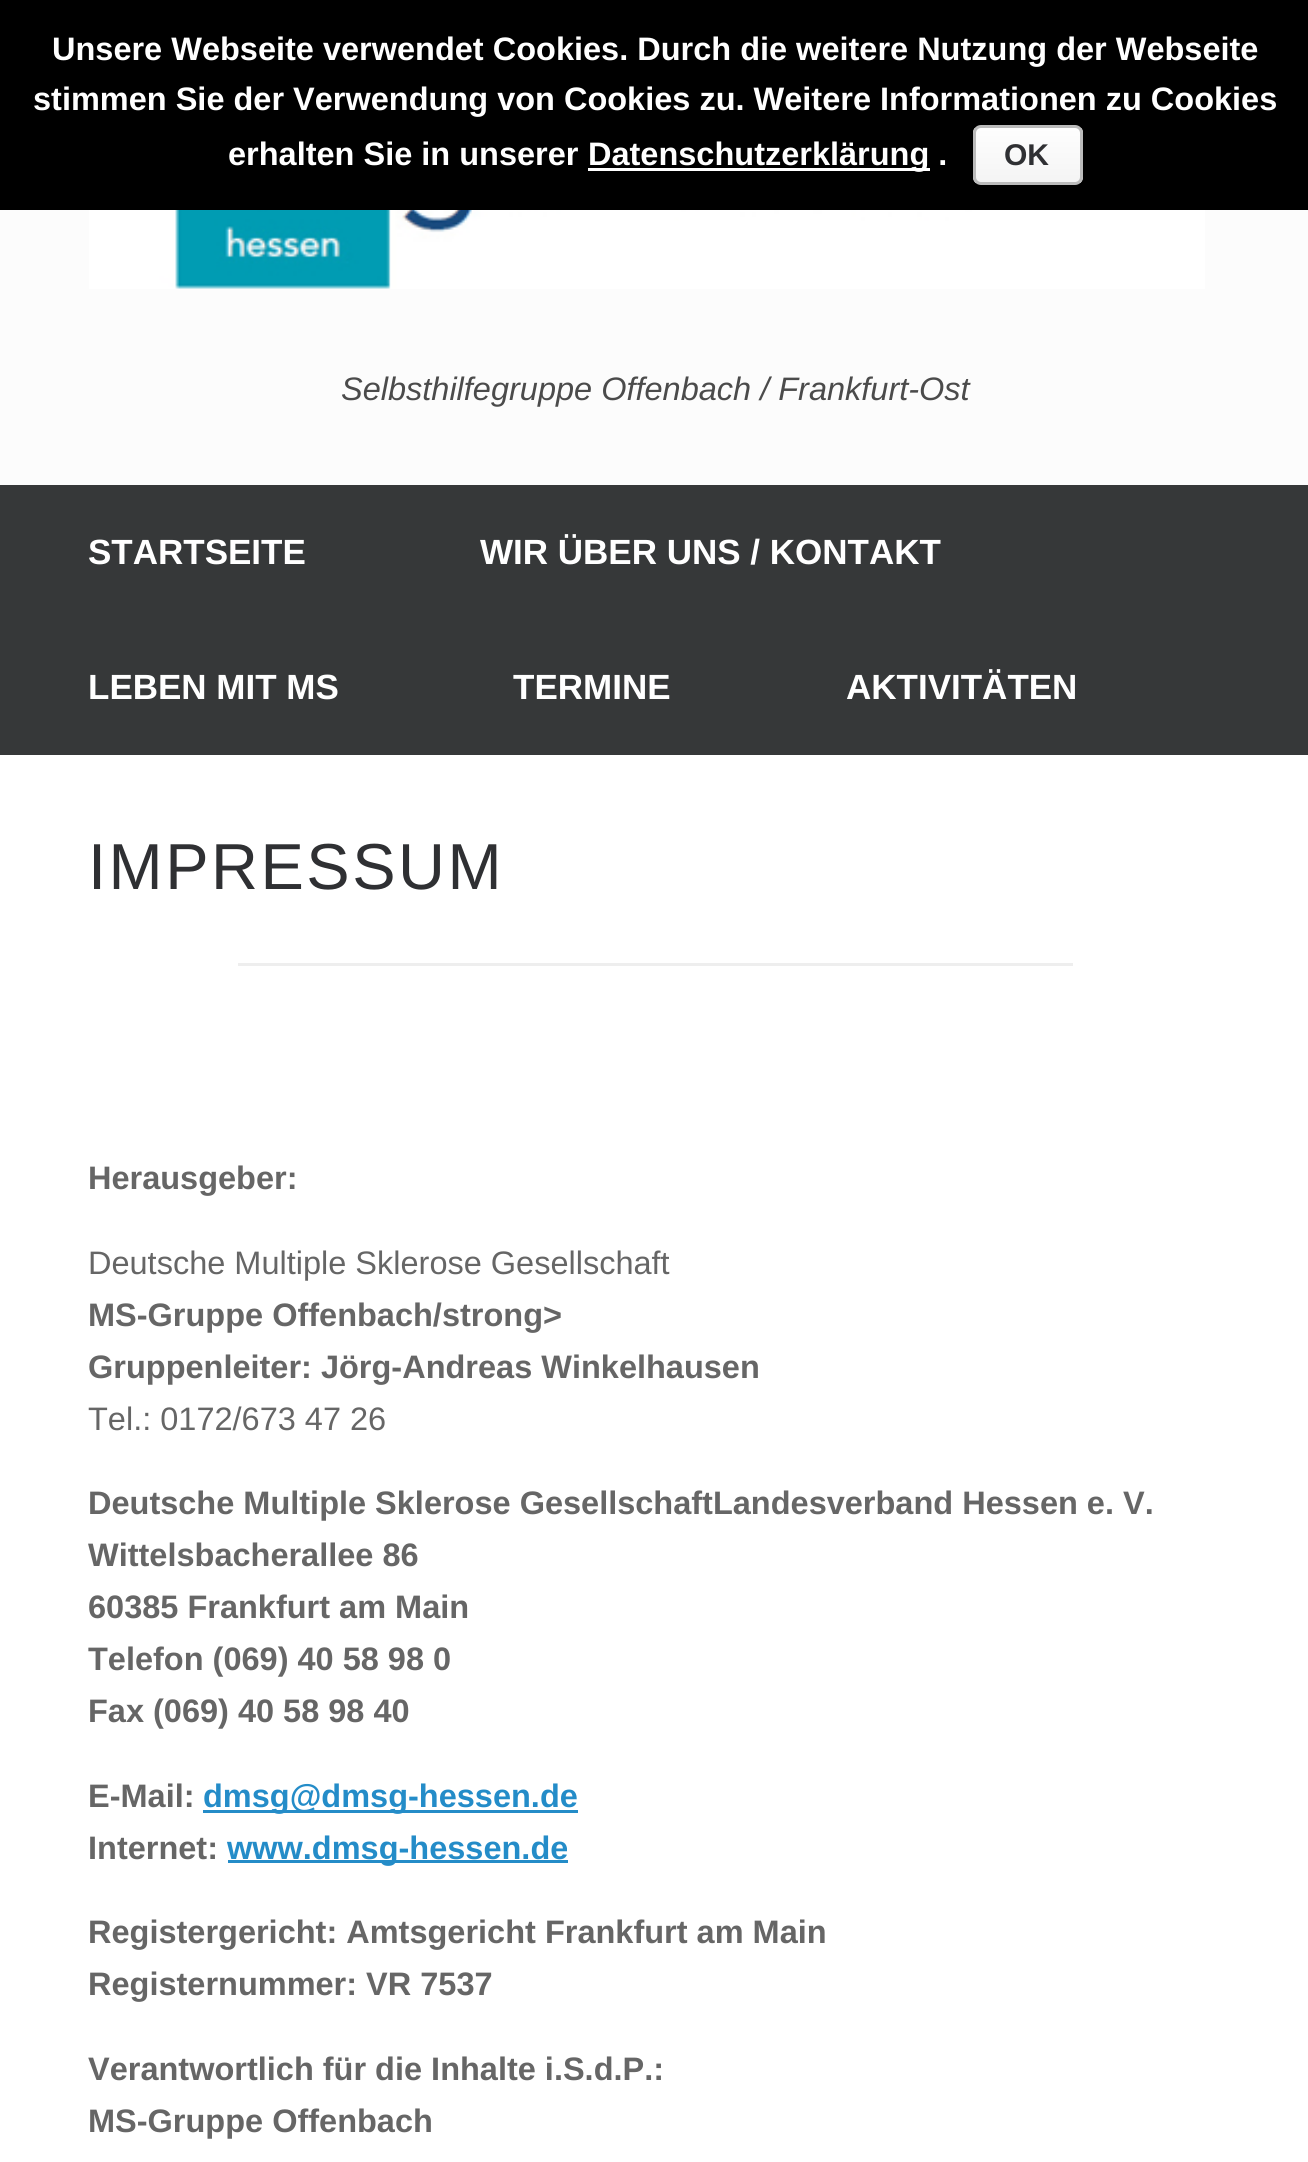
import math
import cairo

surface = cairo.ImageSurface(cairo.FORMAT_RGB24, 1308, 2162)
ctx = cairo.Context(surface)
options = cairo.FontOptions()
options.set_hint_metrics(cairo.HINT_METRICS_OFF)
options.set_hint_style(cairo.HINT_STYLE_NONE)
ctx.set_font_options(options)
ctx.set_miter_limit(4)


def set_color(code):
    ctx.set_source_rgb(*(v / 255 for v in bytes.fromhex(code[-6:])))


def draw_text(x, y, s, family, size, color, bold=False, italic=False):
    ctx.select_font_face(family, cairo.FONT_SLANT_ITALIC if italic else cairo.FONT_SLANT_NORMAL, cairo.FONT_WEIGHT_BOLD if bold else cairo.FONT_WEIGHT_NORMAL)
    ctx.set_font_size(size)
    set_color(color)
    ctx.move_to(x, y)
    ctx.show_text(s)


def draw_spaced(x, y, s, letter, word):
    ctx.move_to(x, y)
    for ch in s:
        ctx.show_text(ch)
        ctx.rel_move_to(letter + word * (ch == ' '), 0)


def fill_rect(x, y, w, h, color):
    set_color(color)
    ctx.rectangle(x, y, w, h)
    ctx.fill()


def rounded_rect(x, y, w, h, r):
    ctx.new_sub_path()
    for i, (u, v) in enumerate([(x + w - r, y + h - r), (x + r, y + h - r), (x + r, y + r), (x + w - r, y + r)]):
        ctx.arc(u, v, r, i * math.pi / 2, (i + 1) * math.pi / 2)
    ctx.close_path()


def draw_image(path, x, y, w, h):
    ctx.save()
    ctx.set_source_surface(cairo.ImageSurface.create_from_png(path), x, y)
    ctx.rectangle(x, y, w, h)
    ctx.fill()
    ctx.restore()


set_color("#fcfcfc")
ctx.paint()
fill_rect(0, 0, 1308, 210, "#000000")
draw_text(52, 60, "Unsere Webseite verwendet Cookies. Durch die weitere Nutzung der Webseite", "Liberation Sans", 32.5, "#ffffff", bold=True)
draw_text(33, 110, "stimmen Sie der Verwendung von Cookies zu. Weitere Informationen zu Cookies", "Liberation Sans", 32.5, "#ffffff", bold=True)
draw_text(228, 165, "erhalten Sie in unserer", "Liberation Sans", 32.5, "#ffffff", bold=True)
fill_rect(588, 168, 342, 3, "#ffffff")
draw_text(588, 165, "Datenschutzerklärung .", "Liberation Sans", 32.5, "#ffffff", bold=True)
ctx.save()
rounded_rect(973, 125, 110, 60, 8)
ctx.clip()
gradient = cairo.LinearGradient(1028, 128, 1028, 183)
gradient.add_color_stop_rgba(0, 0.996, 0.996, 0.996, 1)
gradient.add_color_stop_rgba(1, 0.957, 0.957, 0.957, 1)
ctx.set_source(gradient)
ctx.rectangle(973, 128, 110, 55)
ctx.fill()
ctx.restore()
rounded_rect(974.5, 126.5, 107, 57, 6.5)
set_color("#bbbbbb")
ctx.set_line_width(3)
ctx.stroke()
draw_text(1004, 165, "OK", "Liberation Sans", 30, "#2f3033", bold=True)
draw_image("assets/img1.png", 89, 210, 1116, 79)
draw_text(341, 400, "Selbsthilfegruppe Offenbach / Frankfurt-Ost", "Liberation Sans", 32.5, "#4b4b4b", italic=True)
fill_rect(0, 485, 1308, 270, "#363839")
draw_text(88, 564, "STARTSEITE", "Liberation Sans", 35, "#ffffff", bold=True)
draw_text(480, 564, "WIR ÜBER UNS / KONTAKT", "Liberation Sans", 35, "#ffffff", bold=True)
draw_text(88, 699, "LEBEN MIT MS", "Liberation Sans", 35, "#ffffff", bold=True)
draw_text(513, 699, "TERMINE", "Liberation Sans", 35, "#ffffff", bold=True)
draw_text(846, 699, "AKTIVITÄTEN", "Liberation Sans", 35, "#ffffff", bold=True)
fill_rect(0, 755, 1308, 1407, "#ffffff")
ctx.select_font_face("Liberation Sans")
ctx.set_font_size(65)
set_color("#2f3033")
draw_spaced(88, 889, "IMPRESSUM", 2.5, 0)
fill_rect(238, 963, 835, 3, "#eeeeee")
draw_text(88, 1189, "Herausgeber:", "Liberation Sans", 32.5, "#666666", bold=True)
draw_text(88, 1274, "Deutsche Multiple Sklerose Gesellschaft", "Liberation Sans", 32.5, "#666666")
draw_text(88, 1326, "MS-Gruppe Offenbach/strong>", "Liberation Sans", 32.5, "#666666", bold=True)
draw_text(88, 1378, "Gruppenleiter: Jörg-Andreas Winkelhausen", "Liberation Sans", 32.5, "#666666", bold=True)
draw_text(88, 1430, "Tel.: 0172/673 47 26", "Liberation Sans", 32.5, "#666666")
draw_text(88, 1514, "Deutsche Multiple Sklerose GesellschaftLandesverband Hessen e. V.", "Liberation Sans", 32.5, "#666666", bold=True)
draw_text(88, 1566, "Wittelsbacherallee 86", "Liberation Sans", 32.5, "#666666", bold=True)
draw_text(88, 1618, "60385 Frankfurt am Main", "Liberation Sans", 32.5, "#666666", bold=True)
draw_text(88, 1670, "Telefon (069) 40 58 98 0", "Liberation Sans", 32.5, "#666666", bold=True)
draw_text(88, 1722, "Fax (069) 40 58 98 40", "Liberation Sans", 32.5, "#666666", bold=True)
draw_text(88, 1807, "E-Mail:", "Liberation Sans", 32.5, "#666666", bold=True)
fill_rect(203, 1810, 375, 3, "#248cc8")
draw_text(203, 1807, "dmsg@dmsg-hessen.de", "Liberation Sans", 32.5, "#248cc8", bold=True)
draw_text(88, 1859, "Internet:", "Liberation Sans", 32.5, "#666666", bold=True)
fill_rect(228, 1860, 340, 3, "#248cc8")
draw_text(227, 1859, "www.dmsg-hessen.de", "Liberation Sans", 32.5, "#248cc8", bold=True)
draw_text(88, 1943, "Registergericht: Amtsgericht Frankfurt am Main", "Liberation Sans", 32.5, "#666666", bold=True)
draw_text(88, 1995, "Registernummer: VR 7537", "Liberation Sans", 32.5, "#666666", bold=True)
draw_text(88, 2080, "Verantwortlich für die Inhalte i.S.d.P.:", "Liberation Sans", 32.5, "#666666", bold=True)
draw_text(88, 2132, "MS-Gruppe Offenbach", "Liberation Sans", 32.5, "#666666", bold=True)
surface.write_to_png("output.png")
